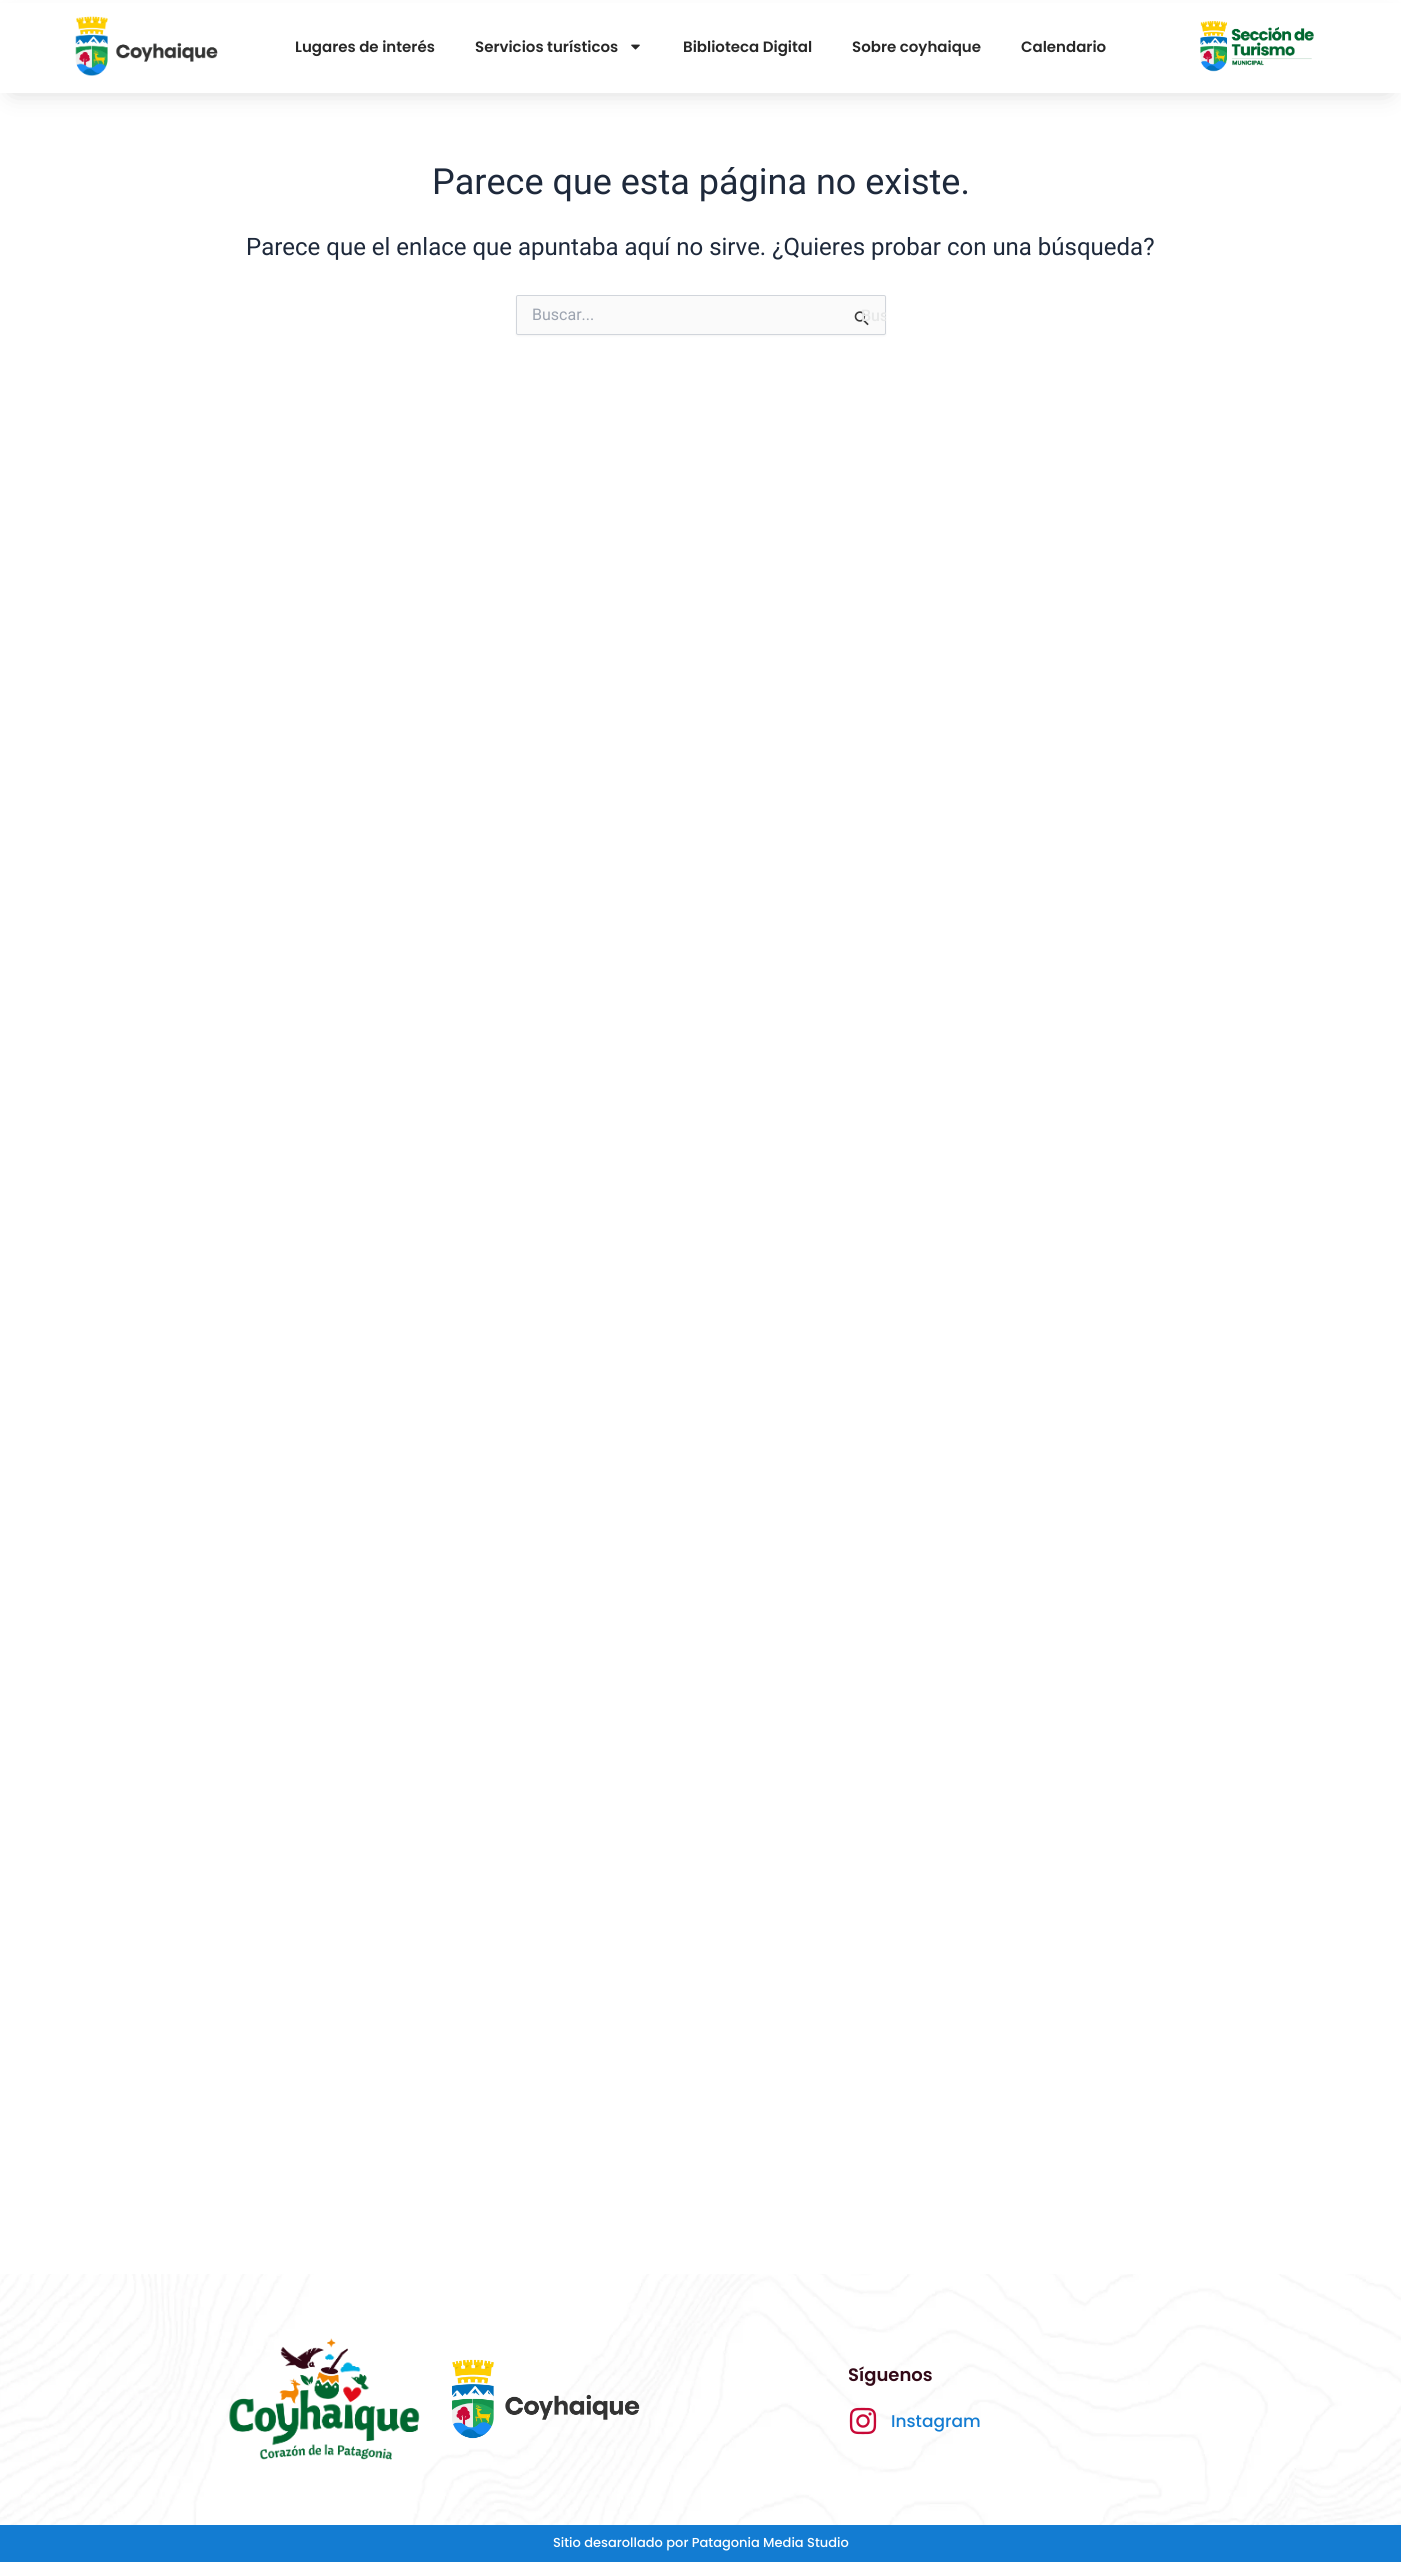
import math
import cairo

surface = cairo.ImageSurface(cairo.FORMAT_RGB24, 1401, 2562)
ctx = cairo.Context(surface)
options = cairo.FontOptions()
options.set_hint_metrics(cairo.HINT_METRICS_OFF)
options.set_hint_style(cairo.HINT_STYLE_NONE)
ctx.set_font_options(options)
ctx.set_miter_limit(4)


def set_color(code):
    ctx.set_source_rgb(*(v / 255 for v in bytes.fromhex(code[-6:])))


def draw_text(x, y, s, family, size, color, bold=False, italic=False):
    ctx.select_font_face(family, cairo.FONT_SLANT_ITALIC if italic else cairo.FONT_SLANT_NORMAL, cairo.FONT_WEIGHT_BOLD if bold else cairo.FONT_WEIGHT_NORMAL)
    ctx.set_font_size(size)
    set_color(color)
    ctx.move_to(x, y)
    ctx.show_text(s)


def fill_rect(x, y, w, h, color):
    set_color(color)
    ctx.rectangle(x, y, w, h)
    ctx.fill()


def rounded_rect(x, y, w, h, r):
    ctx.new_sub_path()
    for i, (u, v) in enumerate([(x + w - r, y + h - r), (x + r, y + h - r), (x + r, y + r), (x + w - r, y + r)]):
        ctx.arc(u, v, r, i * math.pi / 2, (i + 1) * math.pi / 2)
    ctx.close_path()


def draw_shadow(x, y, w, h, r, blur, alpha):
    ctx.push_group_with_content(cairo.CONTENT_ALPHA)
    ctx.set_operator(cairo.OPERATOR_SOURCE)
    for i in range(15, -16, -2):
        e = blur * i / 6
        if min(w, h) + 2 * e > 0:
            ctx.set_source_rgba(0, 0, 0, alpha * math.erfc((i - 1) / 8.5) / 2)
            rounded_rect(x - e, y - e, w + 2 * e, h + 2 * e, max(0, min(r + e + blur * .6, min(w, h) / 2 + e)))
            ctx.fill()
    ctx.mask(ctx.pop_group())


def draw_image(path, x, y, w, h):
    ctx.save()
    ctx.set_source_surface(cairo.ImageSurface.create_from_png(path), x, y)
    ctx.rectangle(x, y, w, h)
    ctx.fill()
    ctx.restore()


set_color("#ffffff")
ctx.paint()
set_color("#000000")
draw_shadow(13, 23, 1375, 67, 0, 12.5, 0.19)
fill_rect(0, 3, 1401, 90, "#ffffff")
draw_image("assets/img1.png", 75, 16, 143, 60)
draw_text(295, 52, "Lugares de interés", "Poppins SemiBold", 15, "#272727")
draw_text(475, 52, "Servicios turísticos", "Poppins SemiBold", 15, "#272727")
draw_image("assets/img2.png", 631, 44, 9, 6)
draw_text(683, 52, "Biblioteca Digital", "Poppins SemiBold", 15, "#272727")
draw_text(852, 52, "Sobre coyhaique", "Poppins SemiBold", 15, "#272727")
draw_text(1021, 52, "Calendario", "Poppins SemiBold", 15, "#272727")
draw_image("assets/img3.png", 1200, 21, 114, 51)
draw_text(432, 194, "Parece que esta página no existe.", "Roboto", 36, "#1e293b")
draw_text(246, 255, "Parece que el enlace que apuntaba aquí no sirve. ¿Quieres probar con una búsqueda?", "Roboto", 24, "#1e293b")
set_color("#000000")
draw_shadow(516, 296, 370, 40, 2, 1, 0.05)
set_color("#fafafa")
rounded_rect(516.5, 295.5, 369, 39, 1.5)
ctx.fill_preserve()
set_color("#d1d5db")
ctx.set_line_width(1)
ctx.stroke()
draw_text(532, 320, "Buscar...", "Roboto", 16, "#9ca3af")
draw_image("assets/img4.png", 854, 311, 15, 15)
ctx.save()
rounded_rect(841, 295, 45, 42, 2)
ctx.clip()
draw_text(861, 321, "Bus", "Roboto Medium", 16, "#e7e8e8")
ctx.restore()
draw_image("assets/img5.png", 0, 2274, 1401, 251)
draw_image("assets/img6.png", 229, 2338, 191, 122)
draw_image("assets/img7.png", 452, 2359, 188, 80)
draw_text(848, 2381, "Síguenos", "Poppins SemiBold", 18, "#330917")
draw_image("assets/img8.png", 849, 2407, 28, 28)
draw_text(891, 2427, "Instagram", "Poppins Medium", 17, "#137cd2")
fill_rect(0, 2525, 1401, 37, "#137cd2")
draw_text(553, 2547, "Sitio desarollado por Patagonia Media Studio", "Poppins Medium", 13, "#ffffff")
surface.write_to_png("output.png")
